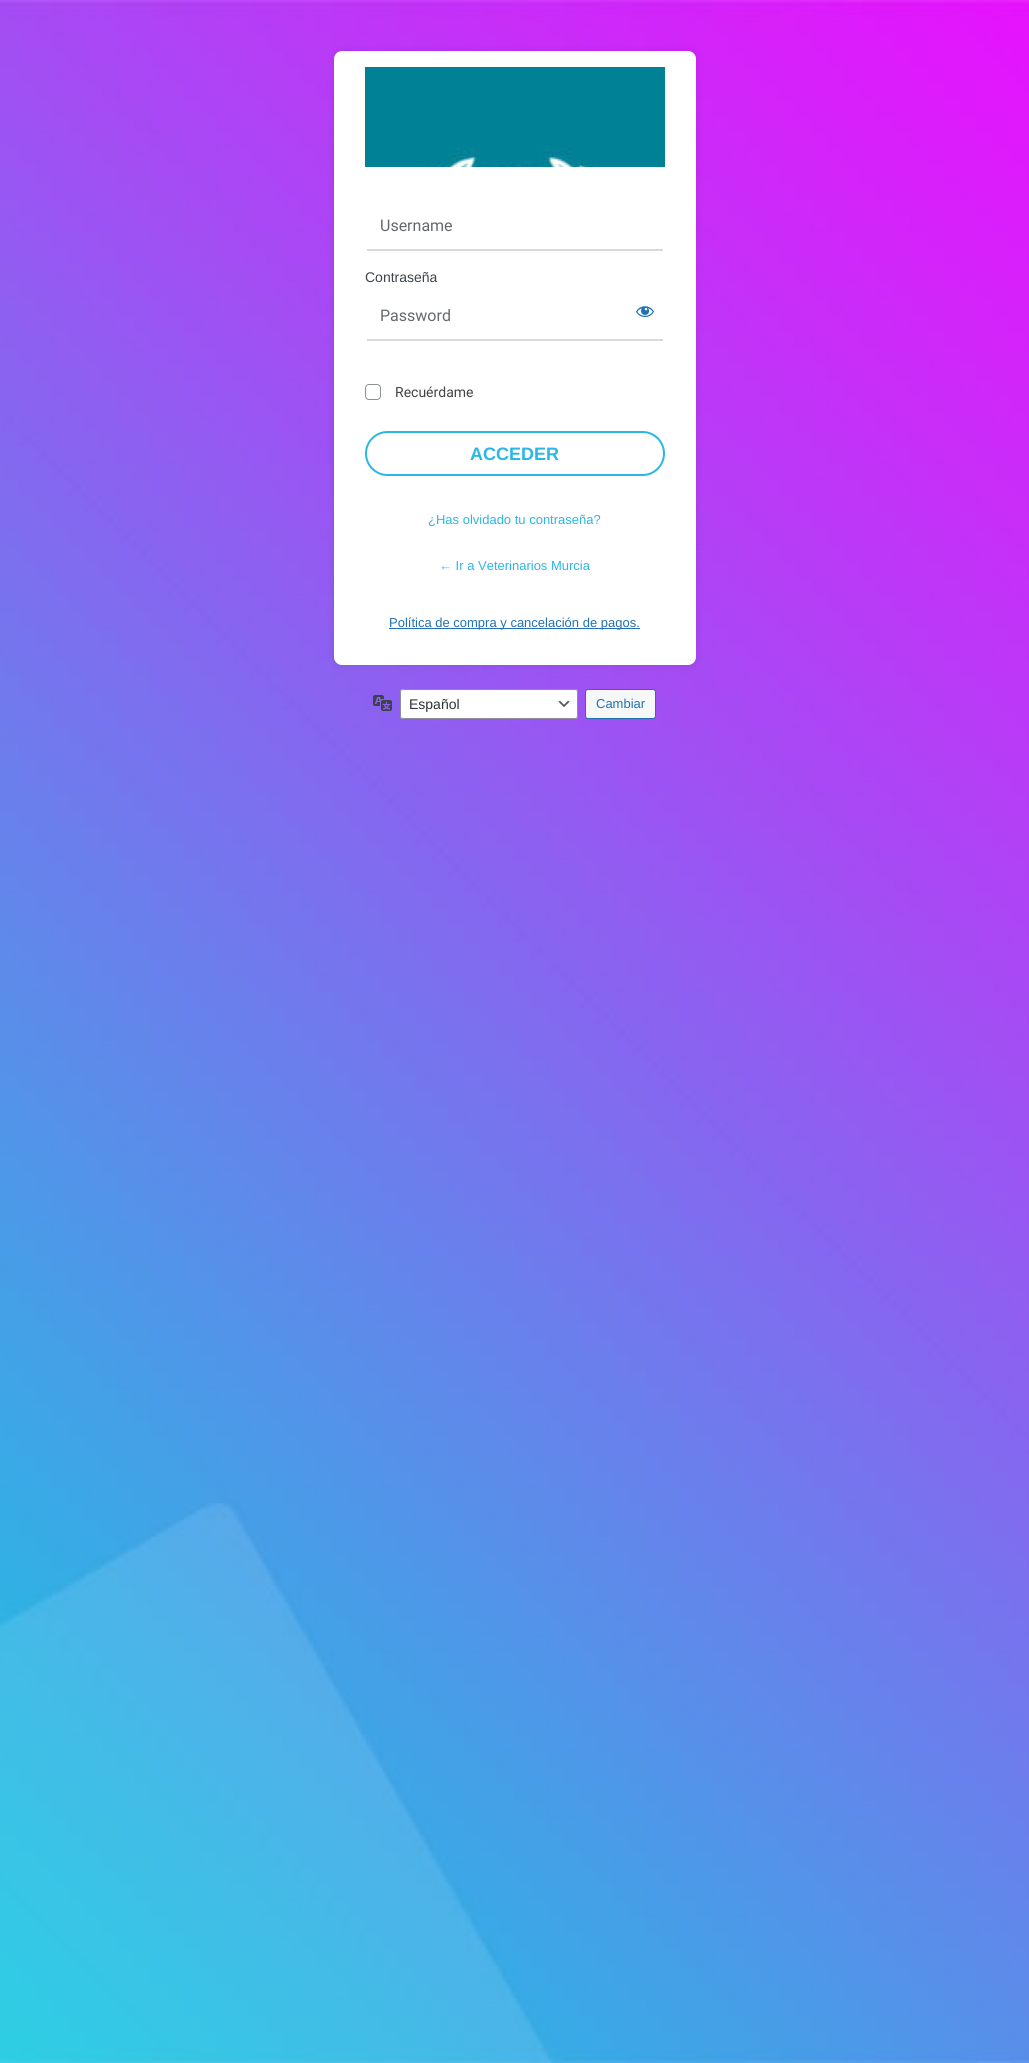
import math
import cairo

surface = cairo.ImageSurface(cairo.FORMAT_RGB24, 1029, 2063)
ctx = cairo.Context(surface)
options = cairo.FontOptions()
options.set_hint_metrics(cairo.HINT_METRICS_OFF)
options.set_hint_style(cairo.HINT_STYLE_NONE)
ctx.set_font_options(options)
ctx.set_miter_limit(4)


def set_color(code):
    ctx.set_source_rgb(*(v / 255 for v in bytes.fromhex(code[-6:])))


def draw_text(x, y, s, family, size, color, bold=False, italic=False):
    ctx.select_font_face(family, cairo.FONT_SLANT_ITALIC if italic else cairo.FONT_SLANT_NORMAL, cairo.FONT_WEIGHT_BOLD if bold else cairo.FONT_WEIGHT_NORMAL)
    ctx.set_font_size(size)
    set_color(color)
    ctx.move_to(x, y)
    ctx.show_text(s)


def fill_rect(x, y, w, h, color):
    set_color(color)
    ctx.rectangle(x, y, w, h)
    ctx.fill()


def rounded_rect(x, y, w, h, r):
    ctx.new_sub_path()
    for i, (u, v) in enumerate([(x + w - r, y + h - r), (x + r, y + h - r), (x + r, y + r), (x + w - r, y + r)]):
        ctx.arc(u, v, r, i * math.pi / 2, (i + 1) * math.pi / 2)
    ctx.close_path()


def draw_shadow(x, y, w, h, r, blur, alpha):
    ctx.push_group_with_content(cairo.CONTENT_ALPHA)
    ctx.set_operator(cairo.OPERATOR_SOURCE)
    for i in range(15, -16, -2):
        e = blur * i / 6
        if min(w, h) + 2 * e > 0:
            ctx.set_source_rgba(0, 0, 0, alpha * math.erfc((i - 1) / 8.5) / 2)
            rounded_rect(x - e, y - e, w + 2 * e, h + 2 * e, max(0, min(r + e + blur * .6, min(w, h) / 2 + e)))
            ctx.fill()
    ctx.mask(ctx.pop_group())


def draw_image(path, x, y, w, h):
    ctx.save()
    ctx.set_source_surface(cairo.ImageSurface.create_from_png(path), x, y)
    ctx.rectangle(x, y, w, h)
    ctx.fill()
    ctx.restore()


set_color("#ffffff")
ctx.paint()
draw_image("assets/img1.png", 0, 0, 1029, 2063)
set_color("#000000")
draw_shadow(334, 51, 362, 614, 8, 4.5, 0.1)
set_color("#ffffff")
rounded_rect(334, 51, 362, 614, 8)
ctx.fill()
draw_image("assets/img2.png", 365, 67, 300, 100)
fill_rect(367, 249, 296, 2, "#d9d9d9")
draw_text(380, 231, "Username", "Roboto", 16, "#646970")
draw_text(365, 282, "Contraseña", "Liberation Sans", 14, "#3c434a")
fill_rect(367, 339, 296, 2, "#d9d9d9")
draw_text(380, 321, "Password", "Roboto", 16, "#646970")
draw_image("assets/img3.png", 636, 306, 18, 12)
rounded_rect(365.5, 384.5, 15, 15, 3.5)
set_color("#8c8f94")
ctx.set_line_width(1)
ctx.stroke()
draw_text(395, 397, "Recuérdame", "Roboto", 14, "#444444")
rounded_rect(366, 432, 298, 43, 21.5)
set_color("#2bb7e3")
ctx.set_line_width(2)
ctx.stroke()
draw_text(470, 460, "ACCEDER", "Liberation Sans", 18, "#2bb7e3", bold=True)
draw_text(428, 524, "¿Has olvidado tu contraseña?", "Liberation Sans", 13, "#2bb7e3")
draw_text(439, 570, "← Ir a Veterinarios Murcia", "Liberation Sans", 13, "#2bb7e3")
fill_rect(389, 628, 251, 1, "#2271b1")
draw_text(389, 627, "Política de compra y cancelación de pagos.", "Liberation Sans", 13, "#2271b1")
draw_image("assets/img4.png", 373, 695, 19, 16)
set_color("#ffffff")
rounded_rect(400, 689, 178, 30, 3)
ctx.fill()
draw_image("assets/img5.png", 558, 700, 12, 7)
rounded_rect(400.5, 689.5, 177, 29, 2.5)
set_color("#8c8f94")
ctx.set_line_width(1)
ctx.stroke()
draw_text(409, 709, "Español", "Liberation Sans", 14, "#2c3338")
set_color("#f6f7f7")
rounded_rect(585.5, 689.5, 70, 29, 2.5)
ctx.fill_preserve()
set_color("#2271b1")
ctx.stroke()
draw_text(596, 708, "Cambiar", "Liberation Sans", 13, "#2271b1")
surface.write_to_png("output.png")
